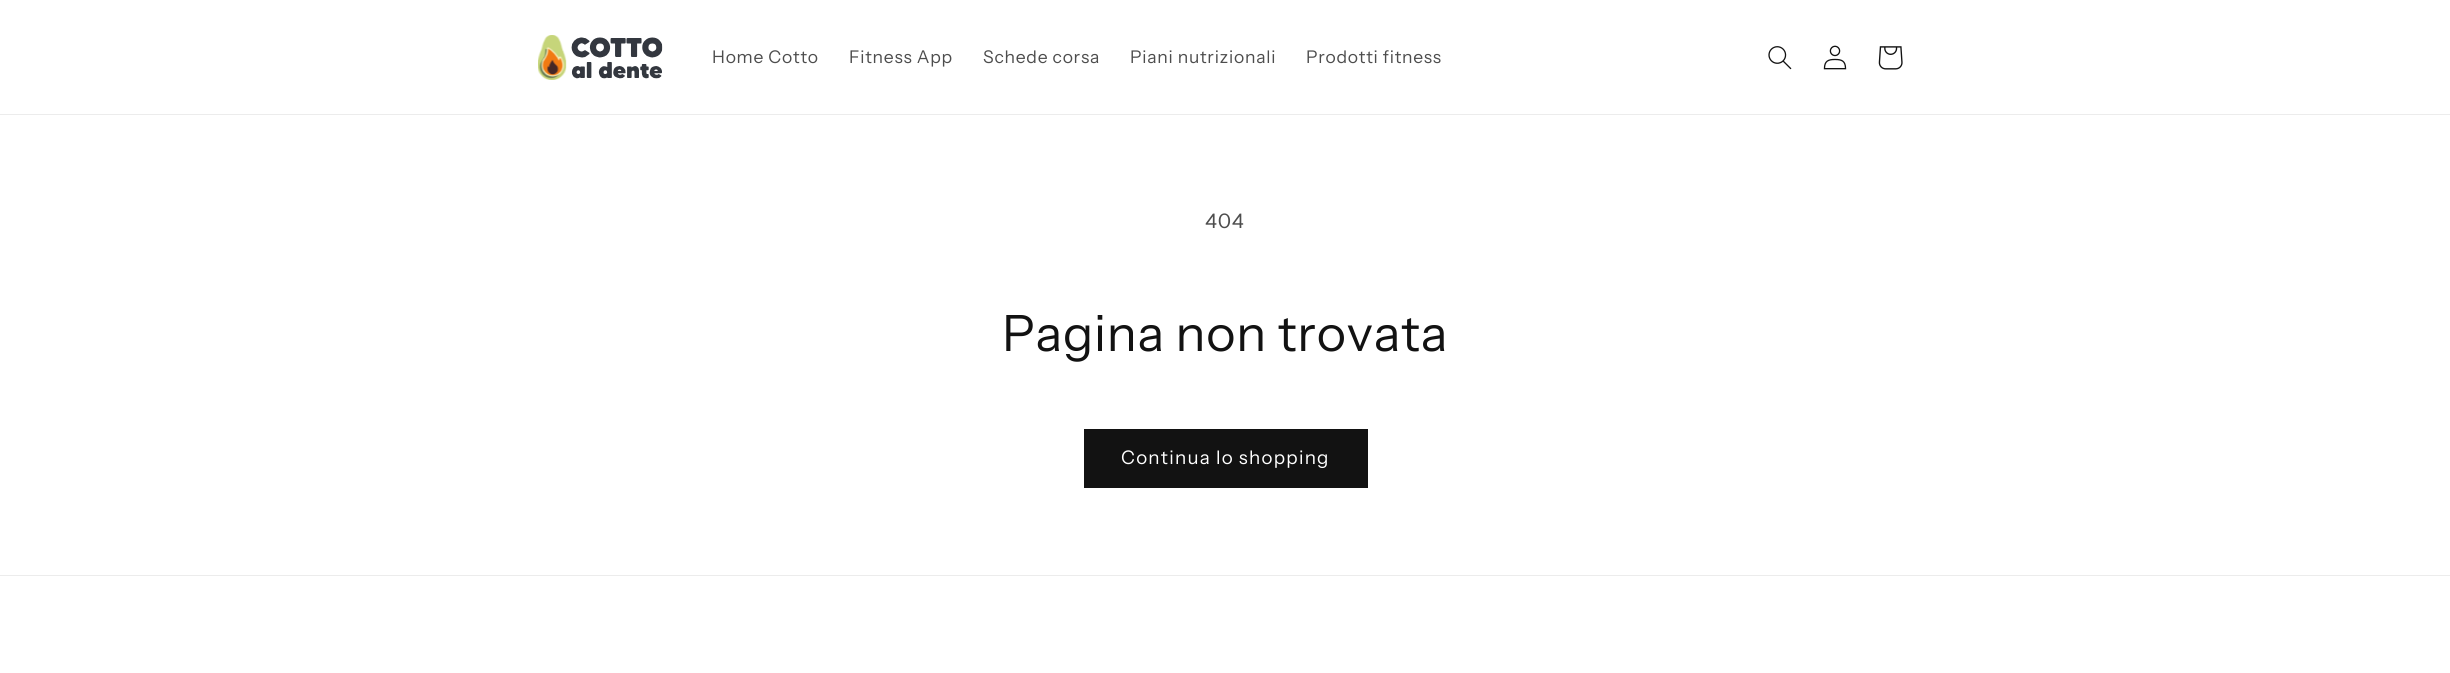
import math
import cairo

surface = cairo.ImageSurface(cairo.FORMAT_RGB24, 2450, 673)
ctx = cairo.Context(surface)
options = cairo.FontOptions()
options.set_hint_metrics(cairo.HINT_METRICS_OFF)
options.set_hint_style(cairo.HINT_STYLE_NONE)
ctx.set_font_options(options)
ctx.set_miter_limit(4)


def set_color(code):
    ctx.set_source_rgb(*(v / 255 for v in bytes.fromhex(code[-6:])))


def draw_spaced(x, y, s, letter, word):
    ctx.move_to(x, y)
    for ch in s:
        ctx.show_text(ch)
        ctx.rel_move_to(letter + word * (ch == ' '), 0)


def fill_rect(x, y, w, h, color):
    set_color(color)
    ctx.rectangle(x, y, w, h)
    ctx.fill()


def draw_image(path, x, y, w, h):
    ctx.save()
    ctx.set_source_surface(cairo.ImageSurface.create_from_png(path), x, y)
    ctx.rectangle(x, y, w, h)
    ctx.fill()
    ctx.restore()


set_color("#ffffff")
ctx.paint()
fill_rect(0, 114, 2450, 1, "#ececec")
draw_image("assets/img1.png", 538, 35, 125, 45)
ctx.select_font_face("Instrument Sans")
ctx.set_font_size(17.5)
set_color("#4d4d4d")
draw_spaced(712, 63, "Home Cotto", 0.75, 0)
draw_spaced(849, 63, "Fitness App", 0.75, 0)
draw_spaced(983, 63, "Schede corsa", 0.75, 0)
draw_spaced(1130, 63, "Piani nutrizionali", 0.75, 0)
draw_spaced(1306, 63, "Prodotti fitness", 0.75, 0)
draw_image("assets/img2.png", 1768, 46, 24, 24)
draw_image("assets/img3.png", 1823, 45, 24, 25)
draw_image("assets/img4.png", 1878, 46, 25, 24)
ctx.set_font_size(20)
draw_spaced(1205, 228, "404", 0.75, 0)
ctx.set_font_size(50)
set_color("#121212")
draw_spaced(1002, 351, "Pagina non trovata", 0.75, 0)
fill_rect(1084, 429, 284, 59, "#121212")
ctx.set_font_size(18.75)
set_color("#ffffff")
draw_spaced(1121, 464, "Continua lo shopping", 1.25, 0)
fill_rect(0, 575, 2450, 1, "#ececec")
surface.write_to_png("output.png")
